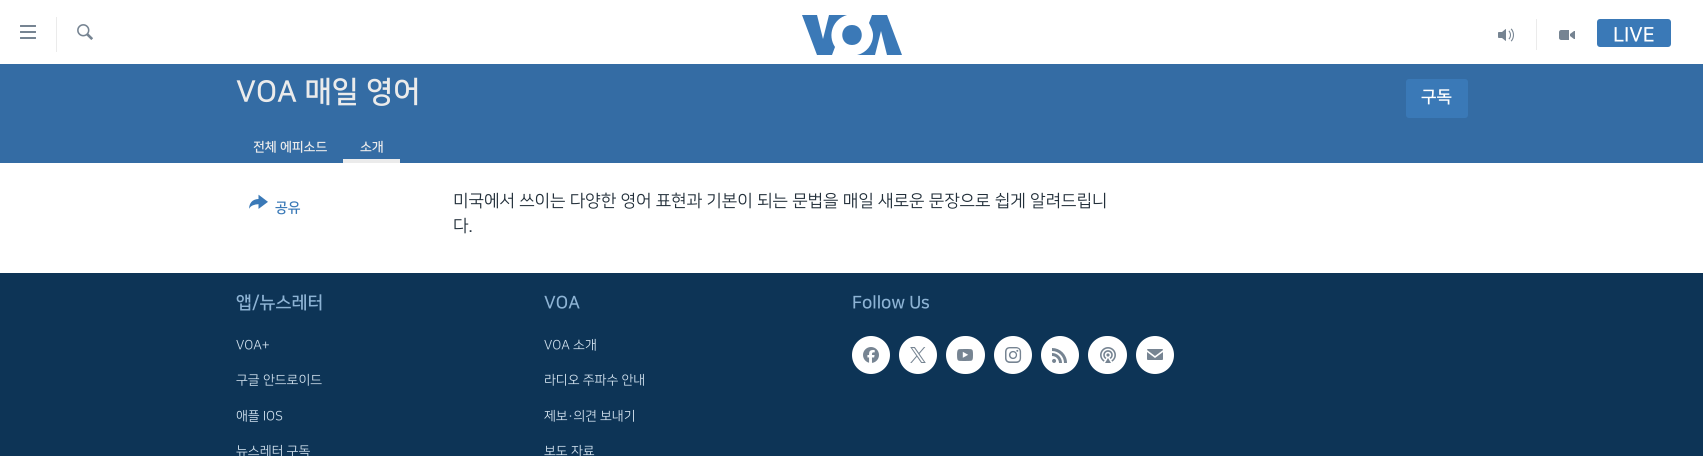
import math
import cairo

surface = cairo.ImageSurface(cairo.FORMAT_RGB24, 1703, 456)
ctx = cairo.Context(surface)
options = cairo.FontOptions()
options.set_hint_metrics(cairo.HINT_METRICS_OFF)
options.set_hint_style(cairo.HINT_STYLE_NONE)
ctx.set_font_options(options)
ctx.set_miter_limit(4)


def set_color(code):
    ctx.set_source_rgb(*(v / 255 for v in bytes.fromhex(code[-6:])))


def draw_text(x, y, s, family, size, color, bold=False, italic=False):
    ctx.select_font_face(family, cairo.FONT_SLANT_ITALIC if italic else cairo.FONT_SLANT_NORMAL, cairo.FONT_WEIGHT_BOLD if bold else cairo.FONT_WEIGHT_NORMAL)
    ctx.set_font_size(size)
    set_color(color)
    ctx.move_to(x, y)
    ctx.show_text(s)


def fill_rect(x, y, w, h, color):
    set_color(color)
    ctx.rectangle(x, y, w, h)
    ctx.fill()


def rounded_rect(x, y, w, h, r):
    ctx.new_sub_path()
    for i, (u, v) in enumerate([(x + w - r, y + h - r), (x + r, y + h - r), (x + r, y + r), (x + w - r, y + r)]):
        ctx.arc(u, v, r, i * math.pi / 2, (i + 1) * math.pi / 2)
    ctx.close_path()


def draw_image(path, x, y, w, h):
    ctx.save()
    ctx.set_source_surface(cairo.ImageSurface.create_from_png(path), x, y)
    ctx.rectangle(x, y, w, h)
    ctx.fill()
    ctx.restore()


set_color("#ffffff")
ctx.paint()
draw_image("assets/img1.png", 20, 25, 16, 14)
fill_rect(56, 17, 1, 35, "#ebebeb")
draw_image("assets/img2.png", 77, 24, 16, 16)
set_color("#3b79b7")
ctx.new_path()
ctx.move_to(835, 47)
ctx.line_to(832, 55)
ctx.line_to(817, 55)
ctx.line_to(802, 15)
ctx.line_to(817, 15)
ctx.line_to(823, 39)
ctx.line_to(829, 15)
ctx.line_to(847, 15)
ctx.curve_to(833, 19, 827, 35, 835, 47)
ctx.close_path()
ctx.move_to(852, 25)
ctx.curve_to(839, 25, 839, 45, 852, 45)
ctx.curve_to(865, 45, 865, 25, 852, 25)
ctx.close_path()
ctx.move_to(873, 35)
ctx.curve_to(873, 45, 866, 53, 857, 55)
ctx.line_to(875, 55)
ctx.line_to(881, 31)
ctx.line_to(887, 55)
ctx.line_to(902, 55)
ctx.line_to(887, 15)
ctx.line_to(872, 15)
ctx.line_to(869, 23)
ctx.curve_to(871, 27, 873, 31, 873, 35)
ctx.close_path()
ctx.fill()
fill_rect(1536, 19, 1, 31, "#ebebeb")
draw_image("assets/img3.png", 1498, 28, 16, 14)
draw_image("assets/img4.png", 1559, 30, 16, 10)
set_color("#3a79b7")
rounded_rect(1597, 19, 74, 28, 3)
ctx.fill()
draw_text(1613, 41, "LIVE", "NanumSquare", 20, "#ffffff", bold=True)
fill_rect(0, 64, 1703, 99, "#346ca4")
draw_text(236, 101, "VOA 매일 영어", "NanumSquare", 29.75, "#ebebeb", bold=True)
set_color("#3a79b7")
rounded_rect(1406, 79, 62, 39, 3)
ctx.fill()
draw_text(1421, 102, "구독", "NanumSquare", 17, "#ffffff", bold=True)
draw_text(253, 151, "전체 에피소드", "NanumSquare", 13, "#ebebeb", bold=True)
draw_text(360, 151, "소개", "NanumSquare", 13, "#ebebeb", bold=True)
fill_rect(343, 159, 57, 4, "#ebebeb")
draw_image("assets/img5.png", 249, 194, 19, 15)
draw_text(275, 212, "공유", "NanumSquare", 14, "#3a79b7", bold=True)
draw_text(453, 206, "미국에서 쓰이는 다양한 영어 표현과 기본이 되는 문법을 매일 새로운 문장으로 쉽게 알려드립니", "NanumSquare", 17, "#222f3a")
draw_text(453, 231, "다.", "NanumSquare", 17, "#222f3a")
fill_rect(0, 273, 1703, 183, "#0d3456")
draw_text(236, 308, "앱/뉴스레터", "NanumSquare", 17.5, "#8db3d4", bold=True)
draw_text(236, 349, "VOA+", "NanumSquare", 13, "#d1e1ee")
draw_text(236, 384, "구글 안드로이드", "NanumSquare", 13, "#d1e1ee")
draw_text(236, 420, "애플 IOS", "NanumSquare", 13, "#d1e1ee")
draw_text(236, 455, "뉴스레터 구독", "NanumSquare", 13, "#d1e1ee")
draw_text(544, 308, "VOA", "NanumSquare", 17.5, "#8db3d4", bold=True)
draw_text(544, 349, "VOA 소개", "NanumSquare", 13, "#d1e1ee")
draw_text(544, 384, "라디오 주파수 안내", "NanumSquare", 13, "#d1e1ee")
draw_text(544, 420, "제보·의견 보내기", "NanumSquare", 13, "#d1e1ee")
draw_text(544, 455, "보도 자료", "NanumSquare", 13, "#d1e1ee")
draw_text(852, 308, "Follow Us", "NanumSquare", 17.5, "#8db3d4", bold=True)
set_color("#ffffff")
ctx.new_path()
ctx.arc(871, 355, 19, 0, 2 * math.pi)
ctx.fill()
draw_image("assets/img6.png", 863, 347, 16, 16)
ctx.arc(918, 355, 19, 0, 2 * math.pi)
ctx.fill()
draw_image("assets/img7.png", 910, 347, 16, 16)
rounded_rect(946, 336, 39, 38, 19)
ctx.fill()
draw_image("assets/img8.png", 957, 349, 16, 12)
ctx.arc(1013, 355, 19, 0, 2 * math.pi)
ctx.fill()
draw_image("assets/img9.png", 1005, 347, 17, 16)
ctx.arc(1060, 355, 19, 0, 2 * math.pi)
ctx.fill()
draw_image("assets/img10.png", 1052, 348, 15, 15)
rounded_rect(1088, 336, 39, 38, 19)
ctx.fill()
draw_image("assets/img11.png", 1100, 347, 16, 16)
ctx.arc(1155, 355, 19, 0, 2 * math.pi)
ctx.fill()
draw_image("assets/img12.png", 1147, 349, 16, 11)
surface.write_to_png("output.png")
